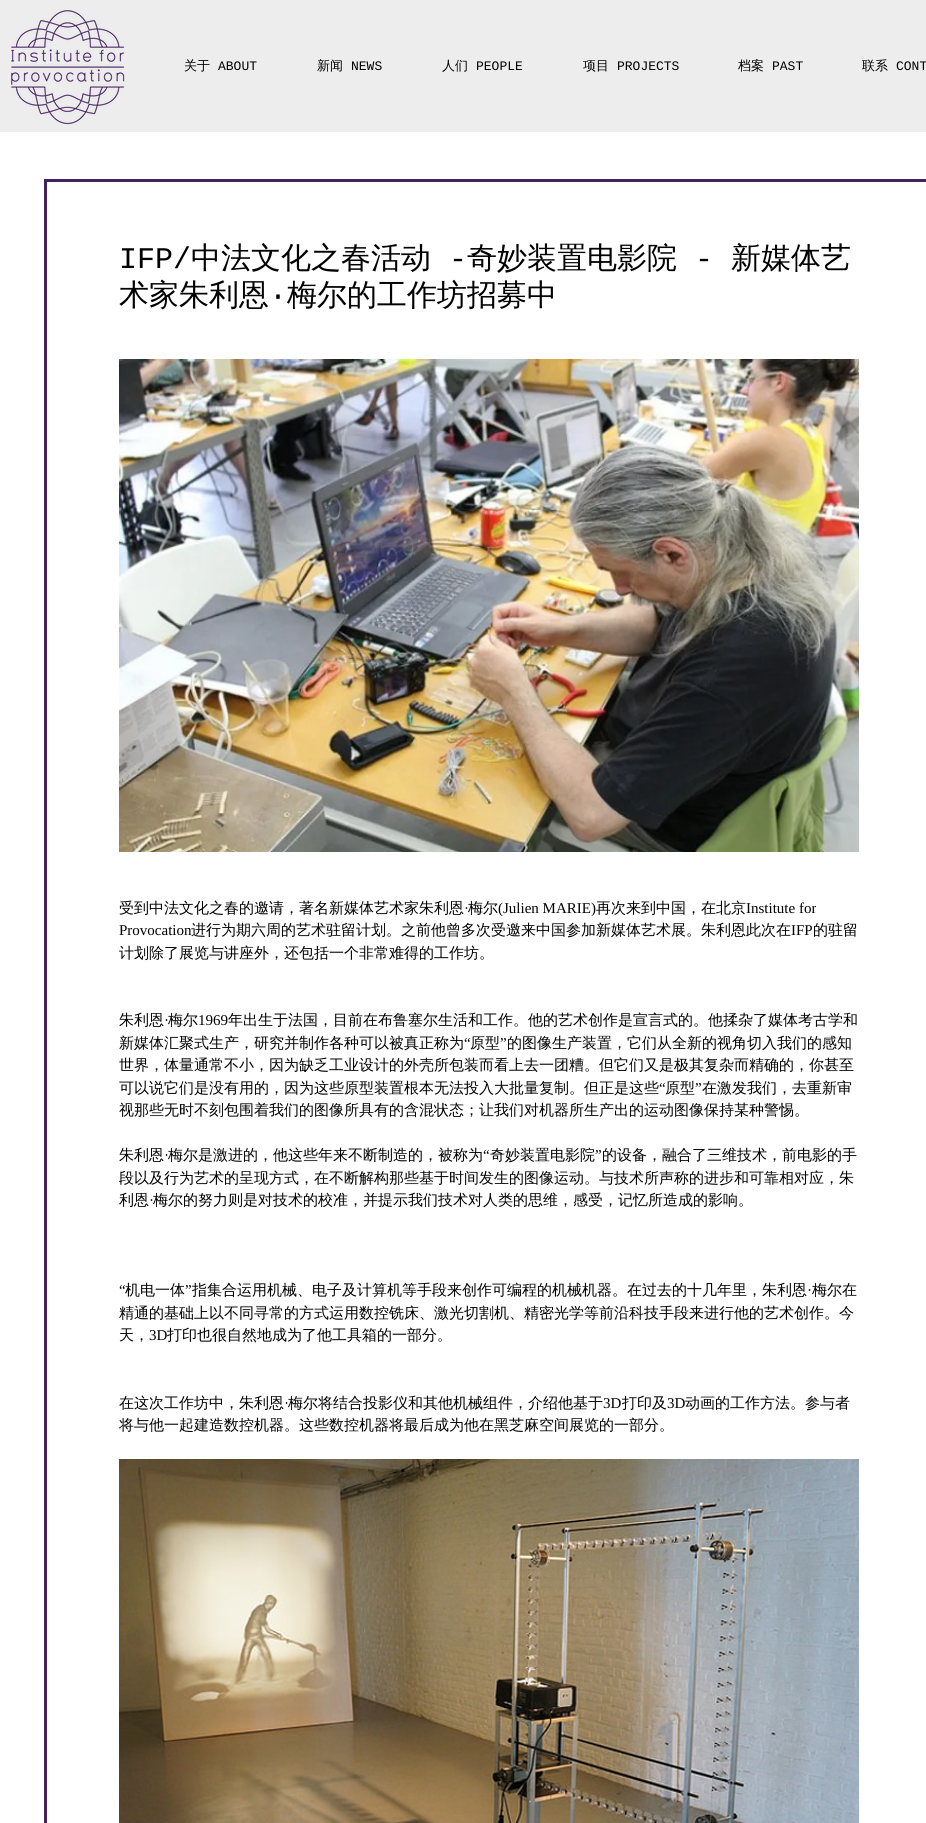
import math
import cairo

surface = cairo.ImageSurface(cairo.FORMAT_RGB24, 926, 1823)
ctx = cairo.Context(surface)
options = cairo.FontOptions()
options.set_hint_metrics(cairo.HINT_METRICS_OFF)
options.set_hint_style(cairo.HINT_STYLE_NONE)
ctx.set_font_options(options)
ctx.set_miter_limit(4)


def set_color(code):
    ctx.set_source_rgb(*(v / 255 for v in bytes.fromhex(code[-6:])))


def draw_text(x, y, s, family, size, color, bold=False, italic=False):
    ctx.select_font_face(family, cairo.FONT_SLANT_ITALIC if italic else cairo.FONT_SLANT_NORMAL, cairo.FONT_WEIGHT_BOLD if bold else cairo.FONT_WEIGHT_NORMAL)
    ctx.set_font_size(size)
    set_color(color)
    ctx.move_to(x, y)
    ctx.show_text(s)


def fill_rect(x, y, w, h, color):
    set_color(color)
    ctx.rectangle(x, y, w, h)
    ctx.fill()


def draw_image(path, x, y, w, h):
    ctx.save()
    ctx.set_source_surface(cairo.ImageSurface.create_from_png(path), x, y)
    ctx.rectangle(x, y, w, h)
    ctx.fill()
    ctx.restore()


set_color("#ffffff")
ctx.paint()
fill_rect(0, 0, 926, 132, "#ededed")
draw_image("assets/img1.png", 11, 10, 114, 115)
draw_text(184, 70, "关于", "WenQuanYi Zen Hei Medium", 13, "#000000")
draw_text(218, 70, "ABOUT", "Liberation Mono", 13, "#000000")
draw_text(317, 70, "新闻", "WenQuanYi Zen Hei Medium", 13, "#000000")
draw_text(351, 70, "NEWS", "Liberation Mono", 13, "#000000")
draw_text(442, 70, "人们", "WenQuanYi Zen Hei Medium", 13, "#000000")
draw_text(476, 70, "PEOPLE", "Liberation Mono", 13, "#000000")
draw_text(583, 70, "项目", "WenQuanYi Zen Hei Medium", 13, "#000000")
draw_text(617, 70, "PROJECTS", "Liberation Mono", 13, "#000000")
draw_text(738, 70, "档案", "WenQuanYi Zen Hei Medium", 13, "#000000")
draw_text(772, 70, "PAST", "Liberation Mono", 13, "#000000")
draw_text(862, 70, "联系", "WenQuanYi Zen Hei Medium", 13, "#000000")
draw_text(896, 70, "CONT", "Liberation Mono", 13, "#000000")
ctx.rectangle(45.5, 180.5, 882, 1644)
set_color("#462162")
ctx.set_line_width(3)
ctx.stroke()
draw_text(119, 268, "IFP/", "Liberation Mono", 30, "#000000")
draw_text(191, 268, "中法文化之春活动", "WenQuanYi Zen Hei Medium", 30, "#000000")
draw_text(449, 268, "-", "Liberation Mono", 30, "#000000")
draw_text(467, 268, "奇妙装置电影院", "WenQuanYi Zen Hei Medium", 30, "#000000")
draw_text(695, 268, "-", "Liberation Mono", 30, "#000000")
draw_text(731, 268, "新媒体艺", "WenQuanYi Zen Hei Medium", 30, "#000000")
draw_text(119, 305, "术家朱利恩", "WenQuanYi Zen Hei Medium", 30, "#000000")
draw_text(269, 305, "·", "Liberation Mono", 30, "#000000")
draw_text(287, 305, "梅尔的工作坊招募中", "WenQuanYi Zen Hei Medium", 30, "#000000")
draw_image("assets/img2.png", 119, 359, 740, 493)
draw_text(119, 913, "受到中法文化之春的邀请，著名新媒体艺术家朱利恩", "WenQuanYi Zen Hei Medium", 15, "#000000")
draw_text(464, 913, "·", "Liberation Serif", 15, "#000000")
draw_text(468, 913, "梅尔", "WenQuanYi Zen Hei Medium", 15, "#000000")
draw_text(498, 913, "(Julien MARIE)", "Liberation Serif", 15, "#000000")
draw_text(596, 913, "再次来到中国，在北京", "WenQuanYi Zen Hei Medium", 15, "#000000")
draw_text(746, 913, "Institute for", "Liberation Serif", 15, "#000000")
draw_text(119, 935, "Provocation", "Liberation Serif", 15, "#000000")
draw_text(191, 935, "进行为期六周的艺术驻留计划。之前他曾多次受邀来中国参加新媒体艺术展。朱利恩此次在", "WenQuanYi Zen Hei Medium", 15, "#000000")
draw_text(791, 935, "IFP", "Liberation Serif", 15, "#000000")
draw_text(813, 935, "的驻留", "WenQuanYi Zen Hei Medium", 15, "#000000")
draw_text(119, 958, "计划除了展览与讲座外，还包括一个非常难得的工作坊。", "WenQuanYi Zen Hei Medium", 15, "#000000")
draw_text(119, 1025, "朱利恩", "WenQuanYi Zen Hei Medium", 15, "#000000")
draw_text(164, 1025, "·", "Liberation Serif", 15, "#000000")
draw_text(168, 1025, "梅尔", "WenQuanYi Zen Hei Medium", 15, "#000000")
draw_text(198, 1025, "1969", "Liberation Serif", 15, "#000000")
draw_text(228, 1025, "年出生于法国，目前在布鲁塞尔生活和工作。他的艺术创作是宣言式的。他揉杂了媒体考古学和", "WenQuanYi Zen Hei Medium", 15, "#000000")
draw_text(119, 1048, "新媒体汇聚式生产，研究并制作各种可以被真正称为", "WenQuanYi Zen Hei Medium", 15, "#000000")
draw_text(464, 1048, "“", "Liberation Serif", 15, "#000000")
draw_text(470, 1048, "原型", "WenQuanYi Zen Hei Medium", 15, "#000000")
draw_text(500, 1048, "”", "Liberation Serif", 15, "#000000")
draw_text(507, 1048, "的图像生产装置，它们从全新的视角切入我们的感知", "WenQuanYi Zen Hei Medium", 15, "#000000")
draw_text(119, 1070, "世界，体量通常不小，因为缺乏工业设计的外壳所包装而看上去一团糟。但它们又是极其复杂而精确的，你甚至", "WenQuanYi Zen Hei Medium", 15, "#000000")
draw_text(119, 1093, "可以说它们是没有用的，因为这些原型装置根本无法投入大批量复制。但正是这些", "WenQuanYi Zen Hei Medium", 15, "#000000")
draw_text(659, 1093, "“", "Liberation Serif", 15, "#000000")
draw_text(665, 1093, "原型", "WenQuanYi Zen Hei Medium", 15, "#000000")
draw_text(695, 1093, "”", "Liberation Serif", 15, "#000000")
draw_text(702, 1093, "在激发我们，去重新审", "WenQuanYi Zen Hei Medium", 15, "#000000")
draw_text(119, 1115, "视那些无时不刻包围着我们的图像所具有的含混状态；让我们对机器所生产出的运动图像保持某种警惕。", "WenQuanYi Zen Hei Medium", 15, "#000000")
draw_text(119, 1160, "朱利恩", "WenQuanYi Zen Hei Medium", 15, "#000000")
draw_text(168, 1160, "梅尔是激进的，他这些年来不断制造的，被称为", "WenQuanYi Zen Hei Medium", 15, "#000000")
draw_text(483, 1160, "“", "Liberation Serif", 15, "#000000")
draw_text(490, 1160, "奇妙装置电影院", "WenQuanYi Zen Hei Medium", 15, "#000000")
draw_text(595, 1160, "”", "Liberation Serif", 15, "#000000")
draw_text(602, 1160, "的设备，融合了三维技术，前电影的手", "WenQuanYi Zen Hei Medium", 15, "#000000")
draw_text(164, 1160, "·", "Liberation Serif", 15, "#000000")
draw_text(119, 1183, "段以及行为艺术的呈现方式，在不断解构那些基于时间发生的图像运动。与技术所声称的进步和可靠相对应，朱", "WenQuanYi Zen Hei Medium", 15, "#000000")
draw_text(119, 1205, "利恩", "WenQuanYi Zen Hei Medium", 15, "#000000")
draw_text(149, 1205, "·", "Liberation Serif", 15, "#000000")
draw_text(153, 1205, "梅尔的努力则是对技术的校准，并提示我们技术对人类的思维，感受，记忆所造成的影响。", "WenQuanYi Zen Hei Medium", 15, "#000000")
draw_text(119, 1295, "“", "Liberation Serif", 15, "#000000")
draw_text(125, 1295, "机电一体", "WenQuanYi Zen Hei Medium", 15, "#000000")
draw_text(185, 1295, "”", "Liberation Serif", 15, "#000000")
draw_text(192, 1295, "指集合运用机械、电子及计算机等手段来创作可编程的机械机器。在过去的十几年里，朱利恩", "WenQuanYi Zen Hei Medium", 15, "#000000")
draw_text(812, 1295, "梅尔在", "WenQuanYi Zen Hei Medium", 15, "#000000")
draw_text(807, 1295, "·", "Liberation Serif", 15, "#000000")
draw_text(119, 1318, "精通的基础上以不同寻常的方式运用数控铣床、激光切割机、精密光学等前沿科技手段来进行他的艺术创作。今", "WenQuanYi Zen Hei Medium", 15, "#000000")
draw_text(119, 1340, "天，", "WenQuanYi Zen Hei Medium", 15, "#000000")
draw_text(149, 1340, "3D", "Liberation Serif", 15, "#000000")
draw_text(167, 1340, "打印也很自然地成为了他工具箱的一部分。", "WenQuanYi Zen Hei Medium", 15, "#000000")
draw_text(119, 1408, "在这次工作坊中，朱利恩", "WenQuanYi Zen Hei Medium", 15, "#000000")
draw_text(284, 1408, "·", "Liberation Serif", 15, "#000000")
draw_text(288, 1408, "梅尔将结合投影仪和其他机械组件，介绍他基于", "WenQuanYi Zen Hei Medium", 15, "#000000")
draw_text(603, 1408, "3D", "Liberation Serif", 15, "#000000")
draw_text(622, 1408, "打印及", "WenQuanYi Zen Hei Medium", 15, "#000000")
draw_text(667, 1408, "3D", "Liberation Serif", 15, "#000000")
draw_text(685, 1408, "动画的工作方法。参与者", "WenQuanYi Zen Hei Medium", 15, "#000000")
draw_text(119, 1430, "将与他一起建造数控机器。这些数控机器将最后成为他在黑芝麻空间展览的一部分。", "WenQuanYi Zen Hei Medium", 15, "#000000")
draw_image("assets/img3.png", 119, 1459, 740, 364)
surface.write_to_png("output.png")
